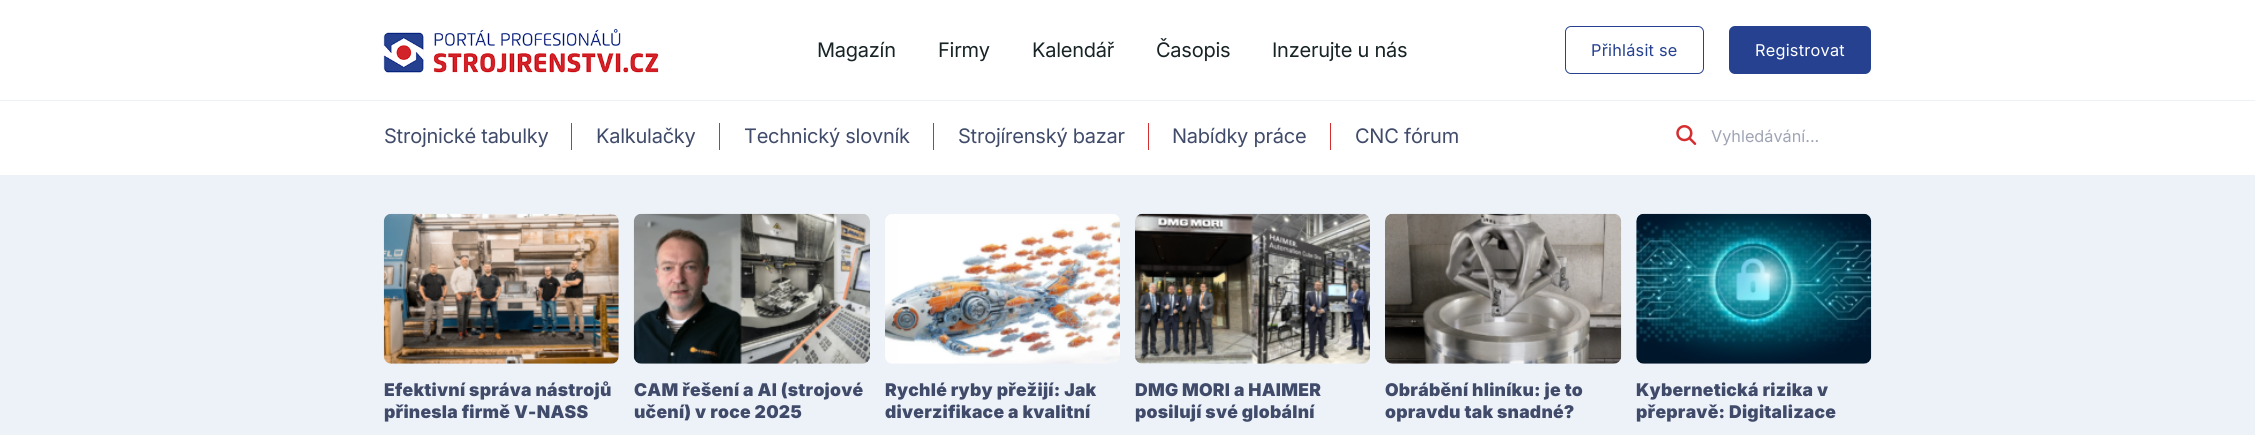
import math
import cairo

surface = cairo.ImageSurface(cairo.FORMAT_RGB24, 2255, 435)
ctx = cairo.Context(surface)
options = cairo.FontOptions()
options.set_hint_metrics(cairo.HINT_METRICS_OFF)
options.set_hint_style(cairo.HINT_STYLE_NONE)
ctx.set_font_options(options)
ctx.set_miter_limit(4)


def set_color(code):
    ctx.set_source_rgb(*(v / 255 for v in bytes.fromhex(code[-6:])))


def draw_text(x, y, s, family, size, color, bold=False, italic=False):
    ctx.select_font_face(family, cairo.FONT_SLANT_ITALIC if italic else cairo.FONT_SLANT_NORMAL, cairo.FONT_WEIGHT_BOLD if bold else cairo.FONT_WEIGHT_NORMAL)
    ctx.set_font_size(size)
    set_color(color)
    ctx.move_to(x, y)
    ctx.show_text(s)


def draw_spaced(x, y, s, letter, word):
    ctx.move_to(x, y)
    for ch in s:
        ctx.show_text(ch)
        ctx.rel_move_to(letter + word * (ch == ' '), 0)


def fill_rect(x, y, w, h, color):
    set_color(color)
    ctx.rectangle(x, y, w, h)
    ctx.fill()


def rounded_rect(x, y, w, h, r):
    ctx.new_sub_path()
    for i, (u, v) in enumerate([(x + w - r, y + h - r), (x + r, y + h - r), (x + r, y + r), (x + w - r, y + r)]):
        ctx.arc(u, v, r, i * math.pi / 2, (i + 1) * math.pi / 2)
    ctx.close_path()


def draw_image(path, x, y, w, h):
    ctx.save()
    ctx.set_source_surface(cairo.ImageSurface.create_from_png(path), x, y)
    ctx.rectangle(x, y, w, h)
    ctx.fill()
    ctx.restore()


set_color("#ffffff")
ctx.paint()
fill_rect(0, 100, 2255, 1, "#edf2f9")
draw_image("assets/img1.png", 383, 28, 276, 45)
ctx.select_font_face("Inter")
ctx.set_font_size(20)
set_color("#172325")
draw_spaced(817, 57, "Magazín", -0.25, 0)
draw_spaced(938, 57, "Firmy", -0.25, 0)
draw_spaced(1032, 57, "Kalendář", -0.25, 0)
draw_spaced(1156, 57, "Časopis", -0.25, 0)
draw_spaced(1272, 57, "Inzerujte u nás", -0.25, 0)
rounded_rect(1565.5, 26.5, 138, 47, 5.5)
set_color("#25418f")
ctx.set_line_width(1)
ctx.stroke()
ctx.set_font_size(16.25)
draw_spaced(1591, 56, "Přihlásit se", 0.25, 0)
rounded_rect(1729, 26, 142, 48, 6)
ctx.fill()
set_color("#ffffff")
draw_spaced(1755, 56, "Registrovat", 0.25, 0)
ctx.set_font_size(20)
set_color("#404b6a")
draw_spaced(384, 143, "Strojnické tabulky", -0.25, 0)
fill_rect(571, 123, 1, 27, "#d42e30")
set_color("#404b6a")
draw_spaced(596, 143, "Kalkulačky", -0.25, 0)
fill_rect(719, 123, 1, 27, "#d42e30")
set_color("#404b6a")
draw_spaced(744, 143, "Technický slovník", -0.25, 0)
fill_rect(933, 123, 1, 27, "#d42e30")
set_color("#404b6a")
draw_spaced(958, 143, "Strojírenský bazar", -0.25, 0)
fill_rect(1148, 123, 1, 27, "#d42e30")
set_color("#404b6a")
draw_spaced(1172, 143, "Nabídky práce", -0.25, 0)
fill_rect(1330, 123, 1, 27, "#d42e30")
set_color("#404b6a")
draw_spaced(1355, 143, "CNC fórum", -0.25, 0)
draw_image("assets/img2.png", 1676, 125, 21, 20)
draw_text(1711, 142, "Vyhledávání...", "Inter", 16.25, "#a0a5b5")
fill_rect(0, 175, 2255, 260, "#edf2f9")
draw_image("assets/img3.png", 383, 213, 236, 151)
ctx.select_font_face("Inter Black")
ctx.set_font_size(17.5)
set_color("#404b6a")
draw_spaced(384, 396, "Efektivní správa nástrojů", 0.25, 0)
draw_spaced(384, 418, "přinesla firmě V-NASS", 0.25, 0)
draw_image("assets/img4.png", 633, 213, 237, 151)
draw_spaced(634, 396, "CAM řešení a AI (strojové", 0.25, 0)
draw_spaced(634, 418, "učení) v roce 2025", 0.25, 0)
draw_image("assets/img5.png", 885, 214, 235, 150)
draw_spaced(885, 396, "Rychlé ryby přežijí: Jak", 0.25, 0)
draw_spaced(885, 418, "diverzifikace a kvalitní", 0.25, 0)
draw_image("assets/img6.png", 1135, 213, 235, 151)
draw_spaced(1135, 396, "DMG MORI a HAIMER", 0.25, 0)
draw_spaced(1135, 418, "posilují své globální", 0.25, 0)
draw_image("assets/img7.png", 1385, 213, 237, 151)
draw_spaced(1385, 396, "Obrábění hliníku: je to", 0.25, 0)
draw_spaced(1385, 418, "opravdu tak snadné?", 0.25, 0)
draw_image("assets/img8.png", 1636, 213, 236, 151)
draw_spaced(1636, 396, "Kybernetická rizika v", 0.25, 0)
draw_spaced(1636, 418, "přepravě: Digitalizace", 0.25, 0)
surface.write_to_png("output.png")
